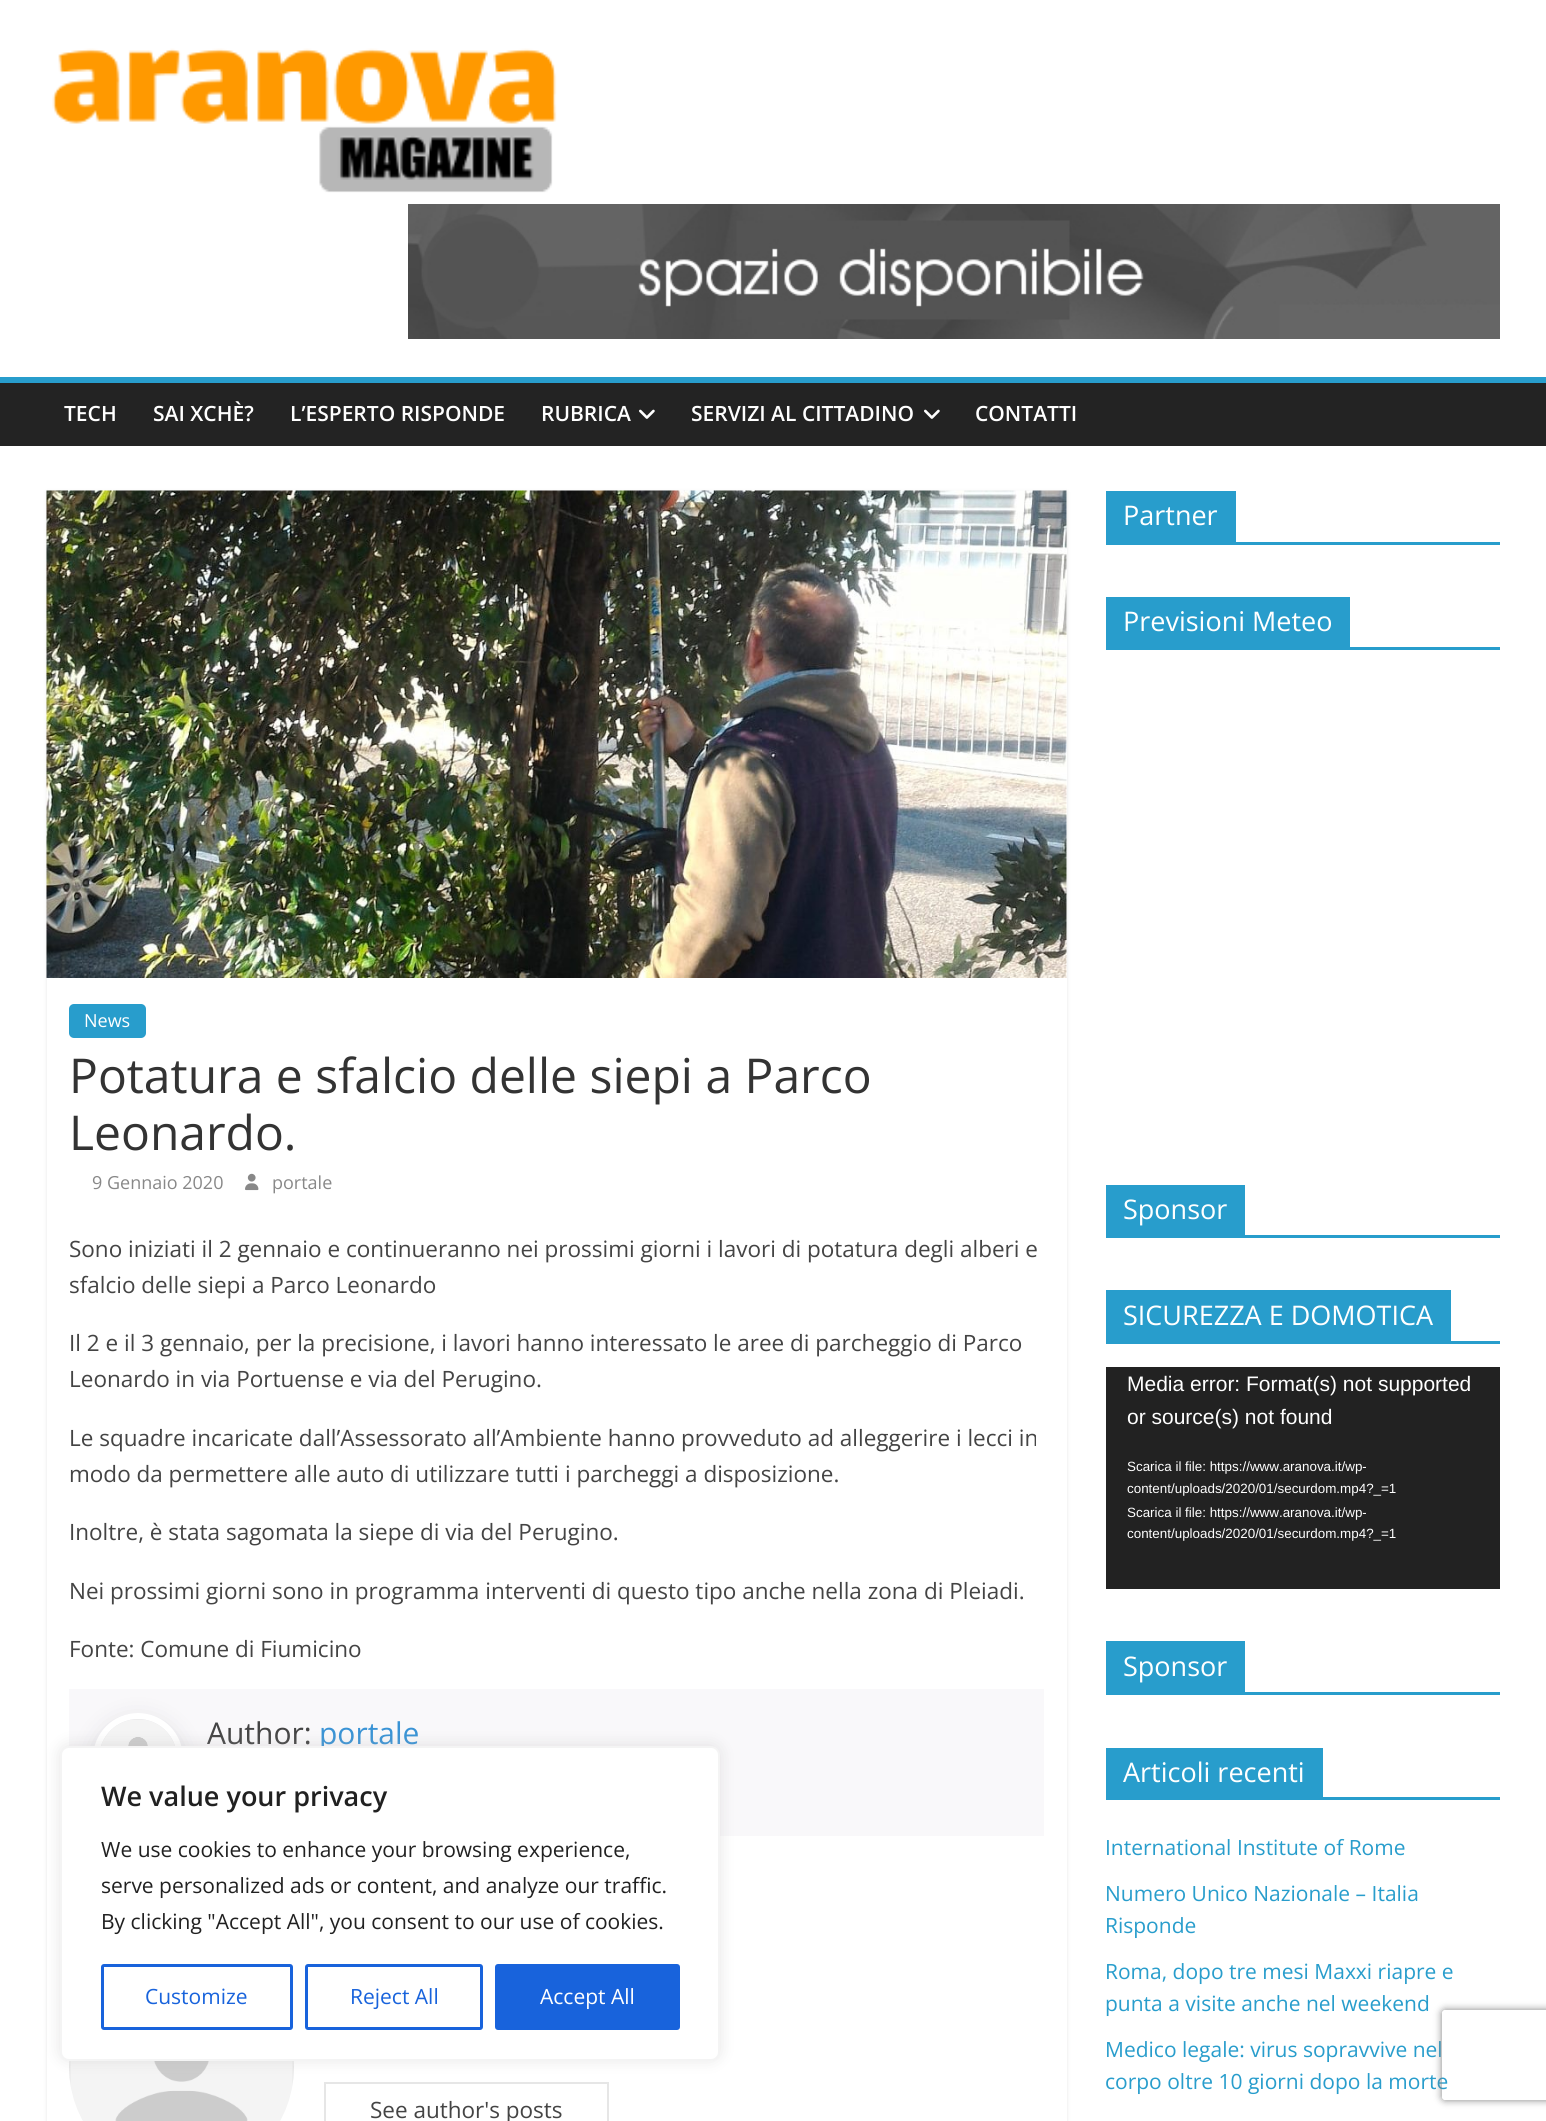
import math
import cairo

surface = cairo.ImageSurface(cairo.FORMAT_RGB24, 1546, 2121)
ctx = cairo.Context(surface)
options = cairo.FontOptions()
options.set_hint_metrics(cairo.HINT_METRICS_OFF)
options.set_hint_style(cairo.HINT_STYLE_NONE)
ctx.set_font_options(options)
ctx.set_miter_limit(4)


def set_color(code):
    ctx.set_source_rgb(*(v / 255 for v in bytes.fromhex(code[-6:])))


def draw_text(x, y, s, family, size, color, bold=False, italic=False):
    ctx.select_font_face(family, cairo.FONT_SLANT_ITALIC if italic else cairo.FONT_SLANT_NORMAL, cairo.FONT_WEIGHT_BOLD if bold else cairo.FONT_WEIGHT_NORMAL)
    ctx.set_font_size(size)
    set_color(color)
    ctx.move_to(x, y)
    ctx.show_text(s)


def fill_rect(x, y, w, h, color):
    set_color(color)
    ctx.rectangle(x, y, w, h)
    ctx.fill()


def rounded_rect(x, y, w, h, r):
    ctx.new_sub_path()
    for i, (u, v) in enumerate([(x + w - r, y + h - r), (x + r, y + h - r), (x + r, y + r), (x + w - r, y + r)]):
        ctx.arc(u, v, r, i * math.pi / 2, (i + 1) * math.pi / 2)
    ctx.close_path()


def draw_shadow(x, y, w, h, r, blur, alpha):
    ctx.push_group_with_content(cairo.CONTENT_ALPHA)
    ctx.set_operator(cairo.OPERATOR_SOURCE)
    for i in range(15, -16, -2):
        e = blur * i / 6
        if min(w, h) + 2 * e > 0:
            ctx.set_source_rgba(0, 0, 0, alpha * math.erfc((i - 1) / 8.5) / 2)
            rounded_rect(x - e, y - e, w + 2 * e, h + 2 * e, max(0, min(r + e + blur * .6, min(w, h) / 2 + e)))
            ctx.fill()
    ctx.mask(ctx.pop_group())


def draw_image(path, x, y, w, h):
    ctx.save()
    ctx.set_source_surface(cairo.ImageSurface.create_from_png(path), x, y)
    ctx.rectangle(x, y, w, h)
    ctx.fill()
    ctx.restore()


set_color("#ffffff")
ctx.paint()
draw_image("assets/img1.png", 52, 48, 505, 145)
draw_image("assets/img2.png", 408, 204, 1092, 135)
fill_rect(0, 383, 1546, 63, "#232323")
fill_rect(0, 377, 1546, 6, "#289dcc")
draw_text(64, 421, "TECH", "Open Sans SemiBold", 21, "#ffffff")
draw_text(153, 421, "SAI XCHÈ?", "Open Sans SemiBold", 21, "#ffffff")
draw_text(290, 421, "L’ESPERTO RISPONDE", "Open Sans SemiBold", 21, "#ffffff")
draw_text(541, 421, "RUBRICA", "Open Sans SemiBold", 21, "#ffffff")
draw_image("assets/img3.png", 639, 409, 16, 10)
draw_text(691, 421, "SERVIZI AL CITTADINO", "Open Sans SemiBold", 21, "#ffffff")
draw_image("assets/img3.png", 924, 409, 16, 10)
draw_text(975, 421, "CONTATTI", "Open Sans SemiBold", 21, "#ffffff")
ctx.save()
ctx.set_fill_rule(cairo.FILL_RULE_EVEN_ODD)
ctx.new_path()
ctx.move_to(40, 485)
ctx.line_to(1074, 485)
ctx.line_to(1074, 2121)
ctx.line_to(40, 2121)
ctx.close_path()
ctx.move_to(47, 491)
ctx.line_to(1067, 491)
ctx.line_to(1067, 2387)
ctx.line_to(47, 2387)
ctx.close_path()
ctx.clip()
set_color("#000000")
draw_shadow(47, 492, 1020, 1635, 0, 2, 0.1)
ctx.restore()
draw_image("assets/img4.png", 46, 490, 1021, 488)
set_color("#289dcc")
rounded_rect(69, 1004, 77, 34, 5)
ctx.fill()
draw_text(84, 1027, "News", "Open Sans", 18, "#ffffff")
draw_text(69, 1093, "Potatura e sfalcio delle siepi a Parco", "Open Sans", 48, "#333333")
draw_text(69, 1150, "Leonardo.", "Open Sans", 48, "#333333")
draw_text(92, 1189, "9 Gennaio 2020", "Open Sans", 18, "#888888")
draw_image("assets/img5.png", 245, 1173, 14, 18)
draw_text(272, 1189, "portale", "Open Sans", 18, "#888888")
draw_text(69, 1257, "Sono iniziati il 2 gennaio e continueranno nei prossimi giorni i lavori di potatura degli alberi e", "Open Sans", 22.5, "#444444")
draw_text(69, 1293, "sfalcio delle siepi a Parco Leonardo", "Open Sans", 22.5, "#444444")
draw_text(69, 1351, "Il 2 e il 3 gennaio, per la precisione, i lavori hanno interessato le aree di parcheggio di Parco", "Open Sans", 22.5, "#444444")
draw_text(69, 1387, "Leonardo in via Portuense e via del Perugino.", "Open Sans", 22.5, "#444444")
draw_text(69, 1446, "Le squadre incaricate dall’Assessorato all’Ambiente hanno provveduto ad alleggerire i lecci in", "Open Sans", 22.5, "#444444")
draw_text(69, 1482, "modo da permettere alle auto di utilizzare tutti i parcheggi a disposizione.", "Open Sans", 22.5, "#444444")
draw_text(69, 1540, "Inoltre, è stata sagomata la siepe di via del Perugino.", "Open Sans", 22.5, "#444444")
draw_text(69, 1599, "Nei prossimi giorni sono in programma interventi di questo tipo anche nella zona di Pleiadi.", "Open Sans", 22.5, "#444444")
draw_text(69, 1657, "Fonte: Comune di Fiumicino", "Open Sans", 22.5, "#444444")
fill_rect(69, 1689, 975, 147, "#f9f8fa")
set_color("#1f1b2d")
draw_shadow(93, 1719, 90, 90, 45, 12, 0.12)
ctx.arc(138, 1758, 42, 0, 2 * math.pi)
set_color("#ffffff")
ctx.set_line_width(6)
ctx.stroke()
draw_image("assets/img6.png", 101, 1719, 74, 27)
draw_text(207, 1744, "Author:", "Open Sans", 30, "#444444")
draw_text(319, 1744, "portale", "Open Sans", 30, "#3993d5")
draw_image("assets/img7.png", 69, 2061, 225, 60)
ctx.rectangle(325, 2083, 283, 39)
set_color("#e6e6e6")
ctx.set_line_width(2)
ctx.stroke()
draw_text(370, 2118, "See author's posts", "Open Sans", 22.5, "#444444")
fill_rect(1106, 542, 394, 3, "#289dcc")
fill_rect(1106, 491, 130, 51, "#289dcc")
draw_text(1123, 525, "Partner", "Open Sans", 27, "#ffffff")
fill_rect(1106, 647, 394, 3, "#289dcc")
fill_rect(1106, 597, 244, 50, "#289dcc")
draw_text(1123, 631, "Previsioni Meteo", "Open Sans", 27, "#ffffff")
fill_rect(1106, 1235, 394, 3, "#289dcc")
fill_rect(1106, 1185, 139, 50, "#289dcc")
draw_text(1123, 1219, "Sponsor", "Open Sans", 27, "#ffffff")
fill_rect(1106, 1341, 394, 3, "#289dcc")
fill_rect(1106, 1290, 345, 51, "#289dcc")
draw_text(1123, 1325, "SICUREZZA E DOMOTICA", "Open Sans", 27, "#ffffff")
fill_rect(1106, 1367, 394, 222, "#222222")
draw_text(1127, 1391, "Media error: Format(s) not supported", "Liberation Sans", 21, "#ffffff")
draw_text(1127, 1424, "or source(s) not found", "Liberation Sans", 21, "#ffffff")
draw_text(1127, 1471, "Scarica il file: https://www.aranova.it/wp-", "Liberation Sans", 13.4, "#ffffff")
draw_text(1127, 1493, "content/uploads/2020/01/securdom.mp4?_=1", "Liberation Sans", 13.4, "#ffffff")
draw_text(1127, 1517, "Scarica il file: https://www.aranova.it/wp-", "Liberation Sans", 13.4, "#ffffff")
draw_text(1127, 1538, "content/uploads/2020/01/securdom.mp4?_=1", "Liberation Sans", 13.4, "#ffffff")
fill_rect(1106, 1692, 394, 3, "#289dcc")
fill_rect(1106, 1641, 139, 51, "#289dcc")
draw_text(1123, 1676, "Sponsor", "Open Sans", 27, "#ffffff")
fill_rect(1106, 1797, 394, 3, "#289dcc")
fill_rect(1106, 1748, 217, 49, "#289dcc")
draw_text(1123, 1782, "Articoli recenti", "Open Sans", 27, "#ffffff")
draw_text(1105, 1855, "International Institute of Rome", "Open Sans", 21, "#289dcc")
draw_text(1105, 1901, "Numero Unico Nazionale – Italia", "Open Sans", 21, "#289dcc")
draw_text(1105, 1933, "Risponde", "Open Sans", 21, "#289dcc")
draw_text(1105, 1979, "Roma, dopo tre mesi Maxxi riapre e", "Open Sans", 21, "#289dcc")
draw_text(1105, 2011, "punta a visite anche nel weekend", "Open Sans", 21, "#289dcc")
draw_text(1105, 2057, "Medico legale: virus sopravvive nel", "Open Sans", 21, "#289dcc")
draw_text(1105, 2089, "corpo oltre 10 giorni dopo la morte", "Open Sans", 21, "#289dcc")
set_color("#acabab")
draw_shadow(60, 1745, 660, 315, 9, 7.5, 0.3)
set_color("#ffffff")
rounded_rect(61, 1747, 658, 313, 8)
ctx.fill_preserve()
set_color("#f4f4f4")
ctx.stroke()
draw_text(101, 1806, "We value your privacy", "Open Sans SemiBold", 27, "#212121")
draw_text(101, 1857, "We use cookies to enhance your browsing experience,", "Open Sans", 21, "#212121")
draw_text(101, 1893, "serve personalized ads or content, and analyze our traffic.", "Open Sans", 21, "#212121")
draw_text(101, 1929, "By clicking \"Accept All\", you consent to our use of cookies.", "Open Sans", 21, "#212121")
rounded_rect(102.5, 1965.5, 189, 63, 1.5)
set_color("#1863dc")
ctx.set_line_width(3)
ctx.stroke()
draw_text(145, 2004, "Customize", "Open Sans", 21, "#1863dc")
rounded_rect(306.5, 1965.5, 175, 63, 1.5)
ctx.stroke()
draw_text(350, 2004, "Reject All", "Open Sans", 21, "#1863dc")
rounded_rect(496.5, 1965.5, 182, 63, 1.5)
ctx.fill_preserve()
ctx.stroke()
draw_text(540, 2004, "Accept All", "Open Sans", 21, "#ffffff")
ctx.save()
ctx.set_fill_rule(cairo.FILL_RULE_EVEN_ODD)
ctx.new_path()
ctx.move_to(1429, 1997)
ctx.line_to(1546, 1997)
ctx.line_to(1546, 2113)
ctx.line_to(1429, 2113)
ctx.close_path()
ctx.move_to(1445, 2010)
ctx.line_to(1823, 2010)
ctx.curve_to(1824.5, 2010, 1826, 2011.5, 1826, 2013)
ctx.line_to(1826, 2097)
ctx.curve_to(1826, 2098.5, 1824.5, 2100, 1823, 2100)
ctx.line_to(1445, 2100)
ctx.curve_to(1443.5, 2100, 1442, 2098.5, 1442, 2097)
ctx.line_to(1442, 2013)
ctx.curve_to(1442, 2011.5, 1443.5, 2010, 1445, 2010)
ctx.close_path()
ctx.clip()
set_color("#808080")
draw_shadow(1442, 2010, 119, 90, 3, 4, 1)
ctx.restore()
surface.write_to_png("output.png")
